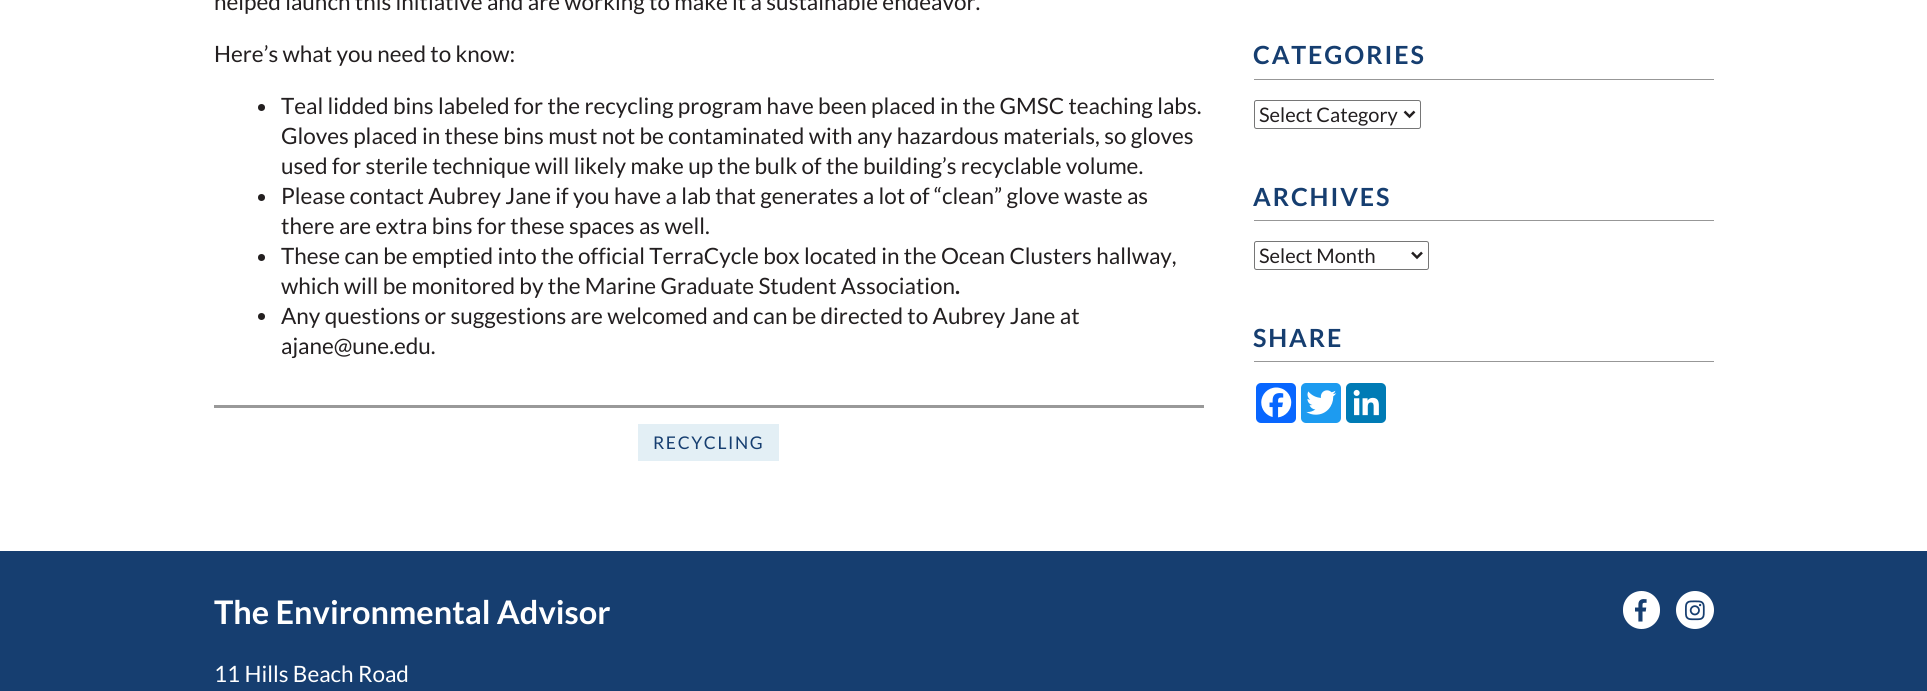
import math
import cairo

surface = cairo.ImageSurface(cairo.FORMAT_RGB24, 1927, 691)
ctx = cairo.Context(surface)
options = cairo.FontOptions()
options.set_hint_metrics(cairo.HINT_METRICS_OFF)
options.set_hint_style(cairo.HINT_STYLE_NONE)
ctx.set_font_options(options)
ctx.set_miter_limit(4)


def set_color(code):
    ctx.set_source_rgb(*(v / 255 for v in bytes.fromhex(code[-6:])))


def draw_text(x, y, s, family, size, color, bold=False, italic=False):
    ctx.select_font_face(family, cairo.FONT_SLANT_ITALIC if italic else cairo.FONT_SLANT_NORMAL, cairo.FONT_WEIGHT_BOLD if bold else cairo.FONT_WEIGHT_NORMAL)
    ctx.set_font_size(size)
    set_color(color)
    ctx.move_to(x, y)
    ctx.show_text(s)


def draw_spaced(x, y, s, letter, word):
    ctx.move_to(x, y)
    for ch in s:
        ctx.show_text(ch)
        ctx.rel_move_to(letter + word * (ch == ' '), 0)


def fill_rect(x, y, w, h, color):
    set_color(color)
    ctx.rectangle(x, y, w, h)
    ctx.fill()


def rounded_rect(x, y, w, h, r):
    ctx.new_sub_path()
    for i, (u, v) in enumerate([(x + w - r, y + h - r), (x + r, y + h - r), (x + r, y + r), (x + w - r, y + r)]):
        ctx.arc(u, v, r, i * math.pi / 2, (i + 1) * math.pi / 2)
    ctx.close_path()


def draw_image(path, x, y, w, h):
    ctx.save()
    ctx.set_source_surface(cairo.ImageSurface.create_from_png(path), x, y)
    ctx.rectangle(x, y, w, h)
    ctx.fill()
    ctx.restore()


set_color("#ffffff")
ctx.paint()
draw_text(214, 10, "helped launch this initiative and are working to make it a sustainable endeavor.", "Lato", 22.5, "#231f20")
draw_text(214, 62, "Here’s what you need to know:", "Lato", 22.5, "#231f20")
ctx.new_path()
ctx.arc(261.5, 107.5, 3.5, 0, 2 * math.pi)
ctx.fill()
draw_text(281, 114, "Teal lidded bins labeled for the recycling program have been placed in the GMSC teaching labs.", "Lato", 22.5, "#231f20")
draw_text(281, 144, "Gloves placed in these bins must not be contaminated with any hazardous materials, so gloves", "Lato", 22.5, "#231f20")
draw_text(281, 174, "used for sterile technique will likely make up the bulk of the building’s recyclable volume.", "Lato", 22.5, "#231f20")
ctx.new_path()
ctx.arc(261.5, 197.5, 3.5, 0, 2 * math.pi)
ctx.fill()
draw_text(281, 204, "Please contact Aubrey Jane if you have a lab that generates a lot of “clean” glove waste as", "Lato", 22.5, "#231f20")
draw_text(281, 234, "there are extra bins for these spaces as well.", "Lato", 22.5, "#231f20")
ctx.new_path()
ctx.arc(261.5, 257.5, 3.5, 0, 2 * math.pi)
ctx.fill()
draw_text(281, 264, "These can be emptied into the official TerraCycle box located in the Ocean Clusters hallway,", "Lato", 22.5, "#231f20")
draw_text(281, 294, "which will be monitored by the Marine Graduate Student Association", "Lato", 22.5, "#231f20")
draw_text(955, 294, ".", "Lato", 22.5, "#231f20", bold=True)
ctx.new_path()
ctx.arc(261.5, 316.5, 3.5, 0, 2 * math.pi)
ctx.fill()
draw_text(281, 324, "Any questions or suggestions are welcomed and can be directed to Aubrey Jane at", "Lato", 22.5, "#231f20")
draw_text(281, 354, "ajane@une.edu.", "Lato", 22.5, "#231f20")
fill_rect(214, 405, 990, 3, "#999999")
fill_rect(638, 424, 141, 37, "#e3eff5")
ctx.set_font_size(17.5)
set_color("#163e70")
draw_spaced(653, 449, "RECYCLING", 1.6, 0)
fill_rect(1254, 79, 460, 1, "#979797")
ctx.select_font_face("Lato", cairo.FONT_SLANT_NORMAL, cairo.FONT_WEIGHT_BOLD)
ctx.set_font_size(25)
set_color("#163e70")
draw_spaced(1253, 64, "CATEGORIES", 1.9, 0)
rounded_rect(1254.5, 100.5, 166, 28, 2)
set_color("#767676")
ctx.set_line_width(1)
ctx.stroke()
ctx.new_path()
ctx.move_to(1404.5, 111.5)
ctx.line_to(1409.5, 116.5)
ctx.line_to(1414.5, 111.5)
set_color("#231f20")
ctx.set_line_width(2.5)
ctx.stroke()
draw_text(1259, 122, "Select Category", "Lato", 20, "#231f20")
fill_rect(1254, 220, 460, 1, "#979797")
ctx.select_font_face("Lato", cairo.FONT_SLANT_NORMAL, cairo.FONT_WEIGHT_BOLD)
ctx.set_font_size(25)
set_color("#163e70")
draw_spaced(1253, 206, "ARCHIVES", 1.9, 0)
rounded_rect(1254.5, 241.5, 174, 28, 2)
set_color("#767676")
ctx.set_line_width(1)
ctx.stroke()
ctx.new_path()
ctx.move_to(1412, 252.5)
ctx.line_to(1417, 257.5)
ctx.line_to(1422, 252.5)
set_color("#231f20")
ctx.set_line_width(2.5)
ctx.stroke()
draw_text(1259, 263, "Select Month", "Lato", 20, "#231f20")
fill_rect(1254, 361, 460, 1, "#979797")
ctx.select_font_face("Lato", cairo.FONT_SLANT_NORMAL, cairo.FONT_WEIGHT_BOLD)
ctx.set_font_size(25)
set_color("#163e70")
draw_spaced(1253, 347, "SHARE", 1.9, 0)
set_color("#0866ff")
rounded_rect(1256, 383, 40, 40, 5)
ctx.fill()
draw_image("assets/img1.png", 1261, 387, 31, 31)
set_color("#1d9bf0")
rounded_rect(1301, 383, 40, 40, 5)
ctx.fill()
draw_image("assets/img2.png", 1306, 390, 31, 25)
set_color("#007bb5")
rounded_rect(1346, 383, 40, 40, 5)
ctx.fill()
draw_image("assets/img3.png", 1353, 389, 26, 27)
fill_rect(0, 551, 1927, 140, "#163e70")
draw_text(214, 624, "The Environmental Advisor", "Lato", 32.5, "#ffffff", bold=True)
draw_text(214, 682, "11 Hills Beach Road", "Lato", 22.5, "#ffffff")
rounded_rect(1623, 591, 37, 38, 18.5)
ctx.fill()
draw_image("assets/img4.png", 1635, 599, 12, 23)
ctx.arc(1695, 610, 19, 0, 2 * math.pi)
ctx.fill()
draw_image("assets/img5.png", 1685, 600, 20, 21)
surface.write_to_png("output.png")
